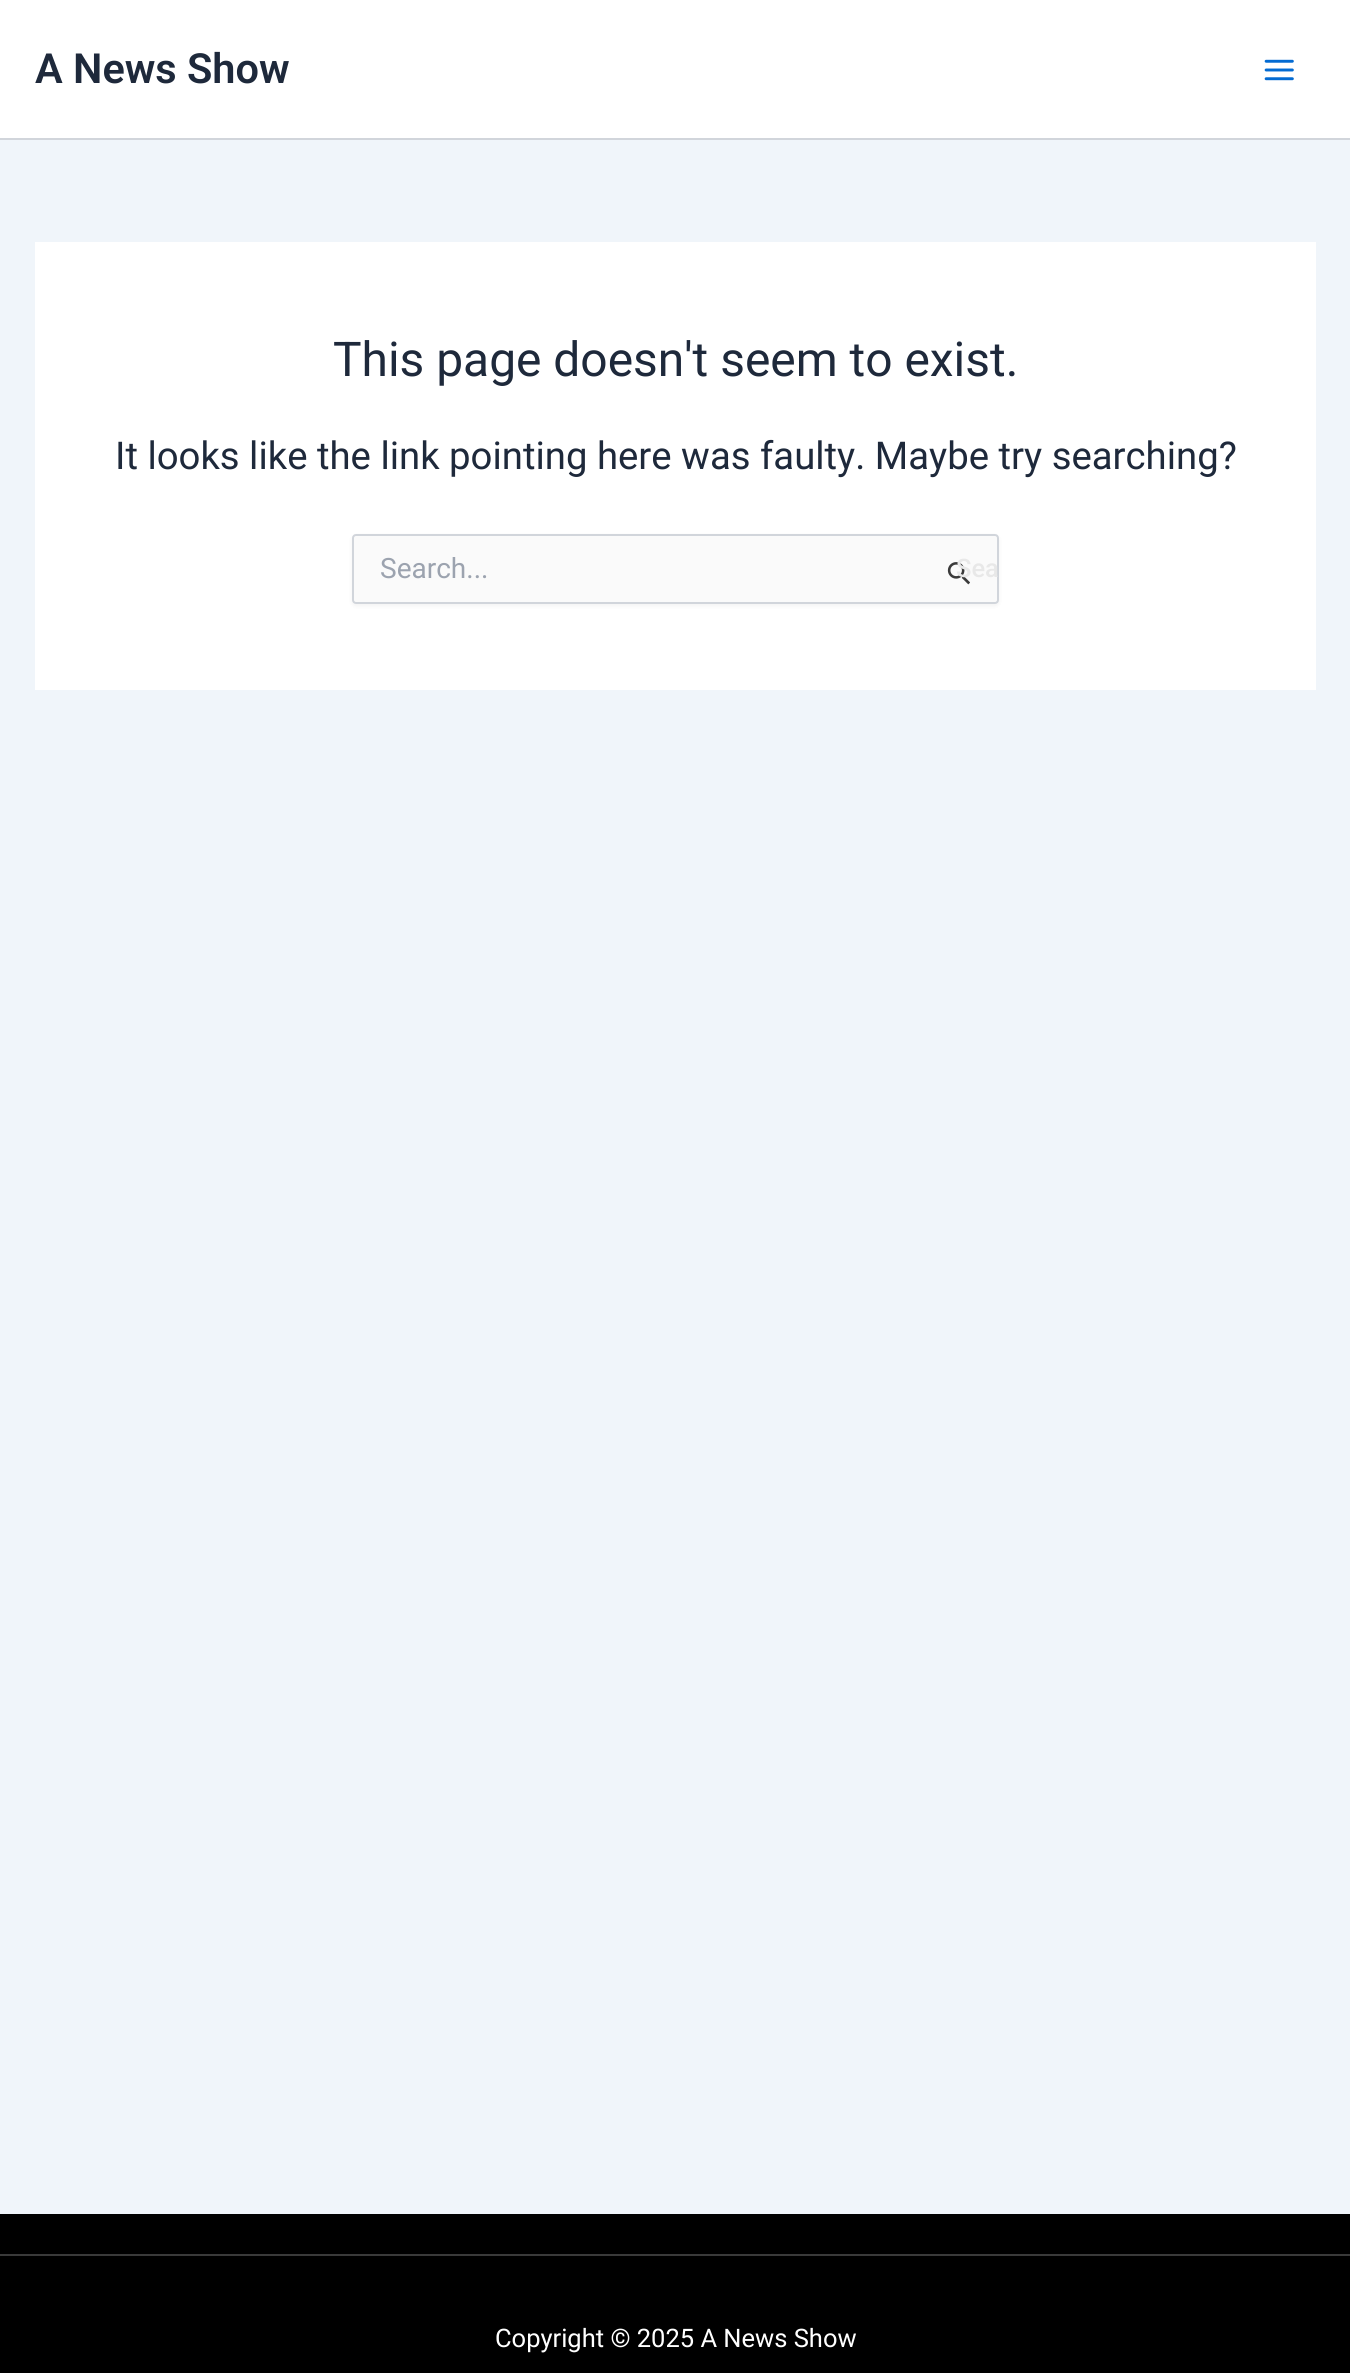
import math
import cairo

surface = cairo.ImageSurface(cairo.FORMAT_RGB24, 1350, 2373)
ctx = cairo.Context(surface)
options = cairo.FontOptions()
options.set_hint_metrics(cairo.HINT_METRICS_OFF)
options.set_hint_style(cairo.HINT_STYLE_NONE)
ctx.set_font_options(options)
ctx.set_miter_limit(4)


def set_color(code):
    ctx.set_source_rgb(*(v / 255 for v in bytes.fromhex(code[-6:])))


def draw_text(x, y, s, family, size, color, bold=False, italic=False):
    ctx.select_font_face(family, cairo.FONT_SLANT_ITALIC if italic else cairo.FONT_SLANT_NORMAL, cairo.FONT_WEIGHT_BOLD if bold else cairo.FONT_WEIGHT_NORMAL)
    ctx.set_font_size(size)
    set_color(color)
    ctx.move_to(x, y)
    ctx.show_text(s)


def fill_rect(x, y, w, h, color):
    set_color(color)
    ctx.rectangle(x, y, w, h)
    ctx.fill()


def rounded_rect(x, y, w, h, r):
    ctx.new_sub_path()
    for i, (u, v) in enumerate([(x + w - r, y + h - r), (x + r, y + h - r), (x + r, y + r), (x + w - r, y + r)]):
        ctx.arc(u, v, r, i * math.pi / 2, (i + 1) * math.pi / 2)
    ctx.close_path()


def draw_shadow(x, y, w, h, r, blur, alpha):
    ctx.push_group_with_content(cairo.CONTENT_ALPHA)
    ctx.set_operator(cairo.OPERATOR_SOURCE)
    for i in range(15, -16, -2):
        e = blur * i / 6
        if min(w, h) + 2 * e > 0:
            ctx.set_source_rgba(0, 0, 0, alpha * math.erfc((i - 1) / 8.5) / 2)
            rounded_rect(x - e, y - e, w + 2 * e, h + 2 * e, max(0, min(r + e + blur * .6, min(w, h) / 2 + e)))
            ctx.fill()
    ctx.mask(ctx.pop_group())


def draw_image(path, x, y, w, h):
    ctx.save()
    ctx.set_source_surface(cairo.ImageSurface.create_from_png(path), x, y)
    ctx.rectangle(x, y, w, h)
    ctx.fill()
    ctx.restore()


set_color("#f0f5fa")
ctx.paint()
fill_rect(0, 0, 1350, 138, "#ffffff")
fill_rect(0, 138, 1350, 2, "#d1d5db")
draw_text(35, 83, "A News Show", "Roboto SemiBold", 41.5, "#1e293b")
draw_image("assets/img1.png", 1264, 59, 30, 22)
fill_rect(35, 242, 1281, 448, "#ffffff")
draw_text(333, 376, "This page doesn't seem to exist.", "Roboto", 47.9, "#1e293b")
draw_text(115, 469, "It looks like the link pointing here was faulty. Maybe try searching?", "Roboto", 38.3, "#1e293b")
set_color("#000000")
draw_shadow(352, 536, 647, 70, 4, 2, 0.05)
set_color("#fafafa")
rounded_rect(353, 535, 645, 68, 3)
ctx.fill_preserve()
set_color("#d1d5db")
ctx.stroke()
draw_text(380, 578, "Search...", "Roboto", 28, "#9ca3af")
draw_image("assets/img2.png", 947, 562, 23, 23)
draw_text(956, 577, "Sea", "Roboto Medium", 25.5, "#e8e8e8")
fill_rect(0, 2214, 1350, 159, "#000000")
fill_rect(0, 2254, 1350, 2, "#3a3a3a")
draw_text(495, 2347, "Copyright © 2025 A News Show", "Roboto", 25.5, "#ffffff")
surface.write_to_png("output.png")
